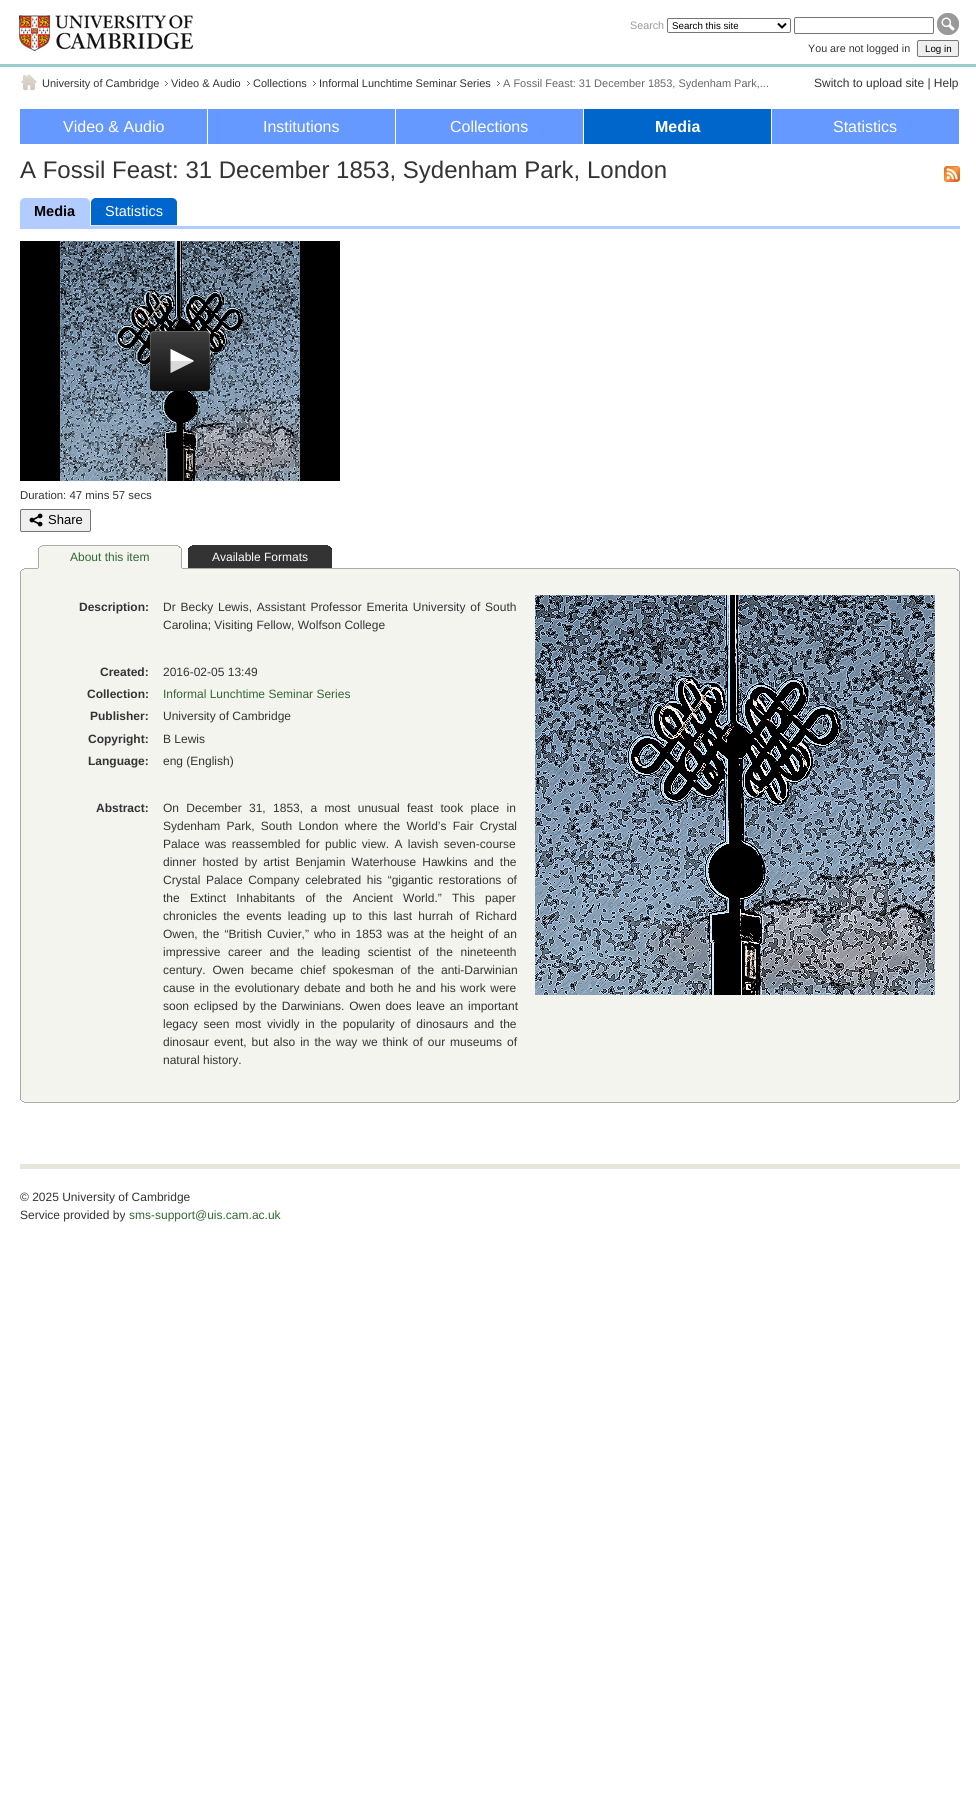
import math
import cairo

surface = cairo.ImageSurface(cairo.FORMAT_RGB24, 976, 1815)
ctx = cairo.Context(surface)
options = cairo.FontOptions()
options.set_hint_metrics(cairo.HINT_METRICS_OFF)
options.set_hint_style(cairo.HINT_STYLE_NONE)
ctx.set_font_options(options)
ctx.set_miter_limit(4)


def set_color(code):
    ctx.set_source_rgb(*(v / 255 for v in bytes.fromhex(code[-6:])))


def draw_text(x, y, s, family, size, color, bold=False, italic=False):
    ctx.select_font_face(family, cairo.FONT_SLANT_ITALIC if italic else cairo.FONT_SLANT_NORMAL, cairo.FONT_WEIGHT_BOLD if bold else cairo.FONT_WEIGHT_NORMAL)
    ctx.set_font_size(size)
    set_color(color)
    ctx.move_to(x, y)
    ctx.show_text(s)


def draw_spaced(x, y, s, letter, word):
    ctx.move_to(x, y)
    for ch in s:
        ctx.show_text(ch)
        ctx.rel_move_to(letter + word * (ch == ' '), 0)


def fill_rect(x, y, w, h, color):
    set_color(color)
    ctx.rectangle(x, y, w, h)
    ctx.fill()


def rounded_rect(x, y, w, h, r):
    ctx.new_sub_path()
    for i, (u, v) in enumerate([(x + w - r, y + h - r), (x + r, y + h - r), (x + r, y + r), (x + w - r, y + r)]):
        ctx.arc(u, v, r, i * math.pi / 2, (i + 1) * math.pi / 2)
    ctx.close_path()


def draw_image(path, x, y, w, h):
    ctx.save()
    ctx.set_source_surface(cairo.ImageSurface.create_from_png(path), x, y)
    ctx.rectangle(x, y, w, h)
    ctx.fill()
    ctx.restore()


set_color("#ffffff")
ctx.paint()
fill_rect(0, 64, 976, 3, "#99cccc")
draw_image("assets/img1.png", 19, 15, 174, 36)
draw_text(630, 29, "Search", "Liberation Sans", 10.75, "#999999")
rounded_rect(667.5, 18.5, 123, 14, 1.5)
set_color("#767676")
ctx.set_line_width(1)
ctx.stroke()
ctx.new_path()
ctx.move_to(778, 23.5)
ctx.line_to(782, 27.5)
ctx.line_to(786, 23.5)
set_color("#000000")
ctx.set_line_width(2)
ctx.stroke()
draw_text(672, 29, "Search this site", "Liberation Sans", 9.75, "#000000")
rounded_rect(794.5, 17.5, 139, 16, 1.5)
set_color("#767676")
ctx.set_line_width(1)
ctx.stroke()
draw_image("assets/img2.png", 937, 13, 22, 22)
draw_text(808, 52, "You are not logged in", "Liberation Sans", 10.75, "#333333")
set_color("#efefef")
rounded_rect(917.5, 40.5, 41, 16, 1.5)
ctx.fill_preserve()
set_color("#767676")
ctx.stroke()
draw_text(925, 52, "Log in", "Liberation Sans", 9.75, "#000000")
draw_image("assets/img3.png", 21, 74, 16, 16)
draw_text(42, 87, "University of Cambridge", "Liberation Sans", 11, "#333333")
draw_image("assets/img4.png", 165, 81, 3, 5)
draw_text(171, 87, "Video & Audio", "Liberation Sans", 11, "#333333")
draw_image("assets/img4.png", 247, 81, 3, 5)
draw_text(253, 87, "Collections", "Liberation Sans", 11, "#333333")
draw_image("assets/img4.png", 313, 81, 3, 5)
draw_text(319, 87, "Informal Lunchtime Seminar Series", "Liberation Sans", 11, "#333333")
draw_image("assets/img4.png", 497, 81, 3, 5)
draw_text(503, 87, "A Fossil Feast: 31 December 1853, Sydenham Park,...", "Liberation Sans", 11, "#666666")
draw_text(814, 87, "Switch to upload site | Help", "Liberation Sans", 12, "#333333")
fill_rect(20, 109, 187, 35, "#6699ff")
draw_text(63, 132, "Video & Audio", "Liberation Sans", 16, "#ffffff")
fill_rect(208, 109, 187, 35, "#6699ff")
draw_text(263, 132, "Institutions", "Liberation Sans", 16, "#ffffff")
fill_rect(396, 109, 187, 35, "#6699ff")
draw_text(450, 132, "Collections", "Liberation Sans", 16, "#ffffff")
fill_rect(584, 109, 187, 35, "#0066cc")
draw_text(655, 132, "Media", "Liberation Sans", 16, "#ffffff", bold=True)
fill_rect(772, 109, 187, 35, "#6699ff")
draw_text(833, 132, "Statistics", "Liberation Sans", 16, "#ffffff")
draw_text(20, 178, "A Fossil Feast: 31 December 1853, Sydenham Park, London", "Liberation Sans", 24, "#333333")
draw_image("assets/img5.png", 944, 166, 16, 16)
fill_rect(20, 226, 940, 3, "#b2ccff")
fill_rect(20, 198, 70, 28, "#b2ccff")
draw_image("assets/img6.png", 86, 198, 4, 4)
draw_image("assets/img7.png", 20, 198, 4, 4)
draw_text(34, 216, "Media", "Liberation Sans", 14.5, "#000000", bold=True)
fill_rect(91, 225, 86, 1, "#e0e0f0")
fill_rect(91, 198, 86, 27, "#0066cc")
draw_image("assets/img8.png", 172, 198, 5, 4)
draw_image("assets/img9.png", 91, 198, 5, 4)
draw_text(105, 216, "Statistics", "Liberation Sans", 14.5, "#ffffff")
draw_image("assets/img10.png", 20, 241, 320, 240)
draw_text(20, 499, "Duration: 47 mins 57 secs", "Liberation Sans", 11.4, "#333333")
set_color("#efefef")
rounded_rect(20.5, 509.5, 70, 22, 1.5)
ctx.fill_preserve()
set_color("#767676")
ctx.stroke()
draw_image("assets/img11.png", 29, 513, 14, 14)
draw_text(48, 524, "Share", "Liberation Sans", 13, "#000000")
fill_rect(42, 545, 136, 1, "#aaaaaa")
fill_rect(40, 546, 140, 1, "#f4f4ee")
fill_rect(178, 546, 2, 1, "#aaaaaa")
fill_rect(40, 546, 2, 1, "#aaaaaa")
fill_rect(39, 547, 142, 1, "#f4f4ee")
fill_rect(179, 547, 2, 1, "#aaaaaa")
fill_rect(39, 547, 1, 1, "#aaaaaa")
fill_rect(38, 548, 144, 2, "#f4f4ee")
fill_rect(181, 548, 1, 20, "#aaaaaa")
fill_rect(38, 548, 1, 20, "#aaaaaa")
fill_rect(39, 550, 142, 18, "#f4f4ee")
draw_text(70, 561, "About this item", "Liberation Sans", 12, "#336633")
fill_rect(24, 568, 932, 1, "#aaaaaa")
fill_rect(38, 568, 144, 1, "#f4f4ee")
fill_rect(192, 545, 136, 1, "#333333")
fill_rect(190, 546, 140, 1, "#333333")
fill_rect(189, 547, 142, 1, "#333333")
fill_rect(188, 548, 144, 20, "#333333")
draw_text(212, 561, "Available Formats", "Liberation Sans", 12, "#ffffff")
fill_rect(22, 569, 936, 1, "#f4f4ee")
fill_rect(956, 569, 2, 1, "#aaaaaa")
fill_rect(22, 569, 2, 1, "#aaaaaa")
fill_rect(21, 570, 938, 1, "#f4f4ee")
fill_rect(957, 570, 2, 1, "#aaaaaa")
fill_rect(21, 570, 1, 1, "#aaaaaa")
fill_rect(20, 571, 940, 2, "#f4f4ee")
fill_rect(959, 571, 1, 527, "#aaaaaa")
fill_rect(20, 571, 1, 527, "#aaaaaa")
fill_rect(21, 573, 938, 525, "#f4f4ee")
draw_text(79, 611, "Description:", "Liberation Sans", 12, "#333333", bold=True)
ctx.select_font_face("Liberation Sans")
draw_spaced(163, 611, "Dr Becky Lewis, Assistant Professor Emerita University of South", 0, 1.5)
draw_text(163, 629, "Carolina; Visiting Fellow, Wolfson College", "Liberation Sans", 12, "#333333")
draw_image("assets/img12.png", 535, 595, 400, 400)
draw_text(100, 676, "Created:", "Liberation Sans", 12, "#333333", bold=True)
draw_text(163, 676, "2016-02-05 13:49", "Liberation Sans", 12, "#333333")
draw_text(87, 698, "Collection:", "Liberation Sans", 12, "#333333", bold=True)
draw_text(163, 698, "Informal Lunchtime Seminar Series", "Liberation Sans", 12, "#336633")
draw_text(90, 720, "Publisher:", "Liberation Sans", 12, "#333333", bold=True)
draw_text(163, 720, "University of Cambridge", "Liberation Sans", 12, "#333333")
draw_text(88, 743, "Copyright:", "Liberation Sans", 12, "#333333", bold=True)
draw_text(163, 743, "B Lewis", "Liberation Sans", 12, "#333333")
draw_text(88, 765, "Language:", "Liberation Sans", 12, "#333333", bold=True)
draw_text(163, 765, "eng (English)", "Liberation Sans", 12, "#333333")
draw_text(96, 812, "Abstract:", "Liberation Sans", 12, "#333333", bold=True)
ctx.select_font_face("Liberation Sans")
draw_spaced(163, 812, "On December 31, 1853, a most unusual feast took place in", 0, 4)
draw_spaced(163, 830, "Sydenham Park, South London where the World’s Fair Crystal", 0, 2.9)
draw_spaced(163, 848, "Palace was reassembled for public view. A lavish seven-course", 0, 2)
draw_spaced(163, 866, "dinner hosted by artist Benjamin Waterhouse Hawkins and the", 0, 2.75)
draw_spaced(163, 884, "Crystal Palace Company celebrated his “gigantic restorations of", 0, 2.25)
draw_spaced(163, 902, "the Extinct Inhabitants of the Ancient World.” This paper", 0, 7)
draw_spaced(163, 920, "chronicles the events leading up to this last hurrah of Richard", 0, 2.9)
draw_spaced(163, 938, "Owen, the “British Cuvier,” who in 1853 was at the height of an", 0, 1.75)
draw_spaced(163, 956, "impressive career and the leading scientist of the nineteenth", 0, 4.25)
draw_spaced(163, 974, "century. Owen became chief spokesman of the anti-Darwinian", 0, 3.5)
draw_spaced(163, 992, "cause in the evolutionary debate and both he and his work were", 0, 1.25)
draw_spaced(163, 1010, "soon eclipsed by the Darwinians. Owen does leave an important", 0, 1.5)
draw_spaced(163, 1028, "legacy seen most vividly in the popularity of dinosaurs and the", 0, 2.4)
draw_spaced(163, 1046, "dinosaur event, but also in the way we think of our museums of", 0, 1.6)
draw_text(163, 1064, "natural history.", "Liberation Sans", 12, "#333333")
fill_rect(20, 1098, 940, 2, "#f4f4ee")
fill_rect(959, 1098, 1, 2, "#aaaaaa")
fill_rect(20, 1098, 1, 2, "#aaaaaa")
fill_rect(21, 1100, 938, 1, "#f4f4ee")
fill_rect(957, 1100, 2, 1, "#aaaaaa")
fill_rect(21, 1100, 1, 1, "#aaaaaa")
fill_rect(22, 1101, 936, 1, "#f4f4ee")
fill_rect(956, 1101, 2, 1, "#aaaaaa")
fill_rect(22, 1101, 2, 1, "#aaaaaa")
fill_rect(24, 1102, 932, 1, "#aaaaaa")
fill_rect(20, 1164, 940, 5, "#e6e6db")
draw_text(20, 1201, "© 2025 University of Cambridge", "Liberation Sans", 12, "#333333")
draw_text(20, 1219, "Service provided by", "Liberation Sans", 12, "#333333")
draw_text(129, 1219, "sms-support@uis.cam.ac.uk", "Liberation Sans", 12, "#336633")
surface.write_to_png("output.png")
